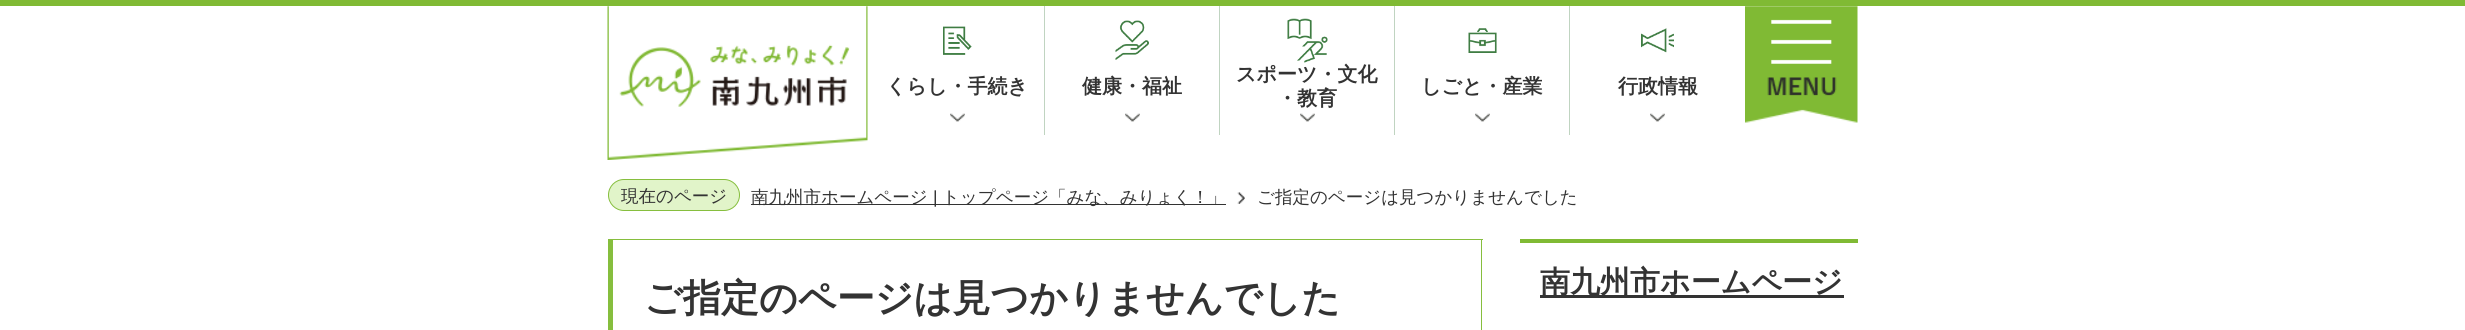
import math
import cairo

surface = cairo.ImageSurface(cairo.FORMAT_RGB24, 2465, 330)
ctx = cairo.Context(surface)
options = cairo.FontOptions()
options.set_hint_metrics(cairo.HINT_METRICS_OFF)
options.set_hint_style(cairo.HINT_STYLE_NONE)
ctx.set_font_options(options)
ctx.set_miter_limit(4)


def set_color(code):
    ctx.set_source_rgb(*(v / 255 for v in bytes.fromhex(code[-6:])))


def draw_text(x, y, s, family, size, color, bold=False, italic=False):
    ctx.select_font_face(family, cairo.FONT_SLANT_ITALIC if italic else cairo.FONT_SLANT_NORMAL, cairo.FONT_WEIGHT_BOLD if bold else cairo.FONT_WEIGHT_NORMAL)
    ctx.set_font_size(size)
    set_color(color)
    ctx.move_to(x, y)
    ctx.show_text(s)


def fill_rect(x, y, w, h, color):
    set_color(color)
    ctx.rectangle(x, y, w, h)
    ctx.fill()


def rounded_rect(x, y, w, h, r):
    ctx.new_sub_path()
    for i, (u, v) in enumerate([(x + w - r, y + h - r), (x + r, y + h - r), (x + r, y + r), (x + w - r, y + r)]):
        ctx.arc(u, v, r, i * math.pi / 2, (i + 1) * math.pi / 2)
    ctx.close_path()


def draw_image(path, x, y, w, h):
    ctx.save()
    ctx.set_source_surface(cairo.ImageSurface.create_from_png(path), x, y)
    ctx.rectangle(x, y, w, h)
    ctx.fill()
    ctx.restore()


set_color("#ffffff")
ctx.paint()
fill_rect(0, 0, 2465, 6, "#80ba34")
draw_image("assets/img1.png", 607, 6, 261, 154)
draw_image("assets/img2.png", 943, 26, 29, 96)
fill_rect(1044, 6, 1, 129, "#c0d4c1")
draw_text(886, 93, "くらし・手続き", "WenQuanYi Zen Hei", 20, "#333333", bold=True)
draw_image("assets/img3.png", 1115, 20, 34, 102)
fill_rect(1219, 6, 1, 129, "#c0d4c1")
draw_text(1082, 93, "健康・福祉", "WenQuanYi Zen Hei", 20, "#333333", bold=True)
draw_image("assets/img4.png", 1287, 18, 41, 104)
fill_rect(1394, 6, 1, 129, "#c0d4c1")
draw_text(1236, 81, "スポーツ・文化", "WenQuanYi Zen Hei", 20, "#333333", bold=True)
draw_text(1277, 105, "・教育", "WenQuanYi Zen Hei", 20, "#333333", bold=True)
draw_image("assets/img5.png", 1468, 28, 29, 94)
fill_rect(1569, 6, 1, 129, "#c0d4c1")
draw_text(1421, 93, "しごと・産業", "WenQuanYi Zen Hei", 20, "#333333", bold=True)
draw_image("assets/img6.png", 1641, 28, 33, 94)
draw_text(1618, 93, "行政情報", "WenQuanYi Zen Hei", 20, "#333333", bold=True)
draw_image("assets/img7.png", 1745, 6, 113, 117)
set_color("#e1f4c9")
rounded_rect(608.5, 179.5, 131, 31, 15.5)
ctx.fill_preserve()
set_color("#86be3e")
ctx.set_line_width(1)
ctx.stroke()
draw_text(621, 202, "現在のページ", "WenQuanYi Zen Hei Medium", 17.5, "#333333")
fill_rect(751, 204, 475, 1, "#333333")
draw_text(751, 203, "南九州市ホームページ", "WenQuanYi Zen Hei Medium", 17.5, "#333333")
draw_text(933, 203, "|", "Liberation Sans", 17.5, "#333333")
draw_text(942, 203, "トップページ「みな、みりょく！」", "WenQuanYi Zen Hei Medium", 17.5, "#333333")
draw_image("assets/img8.png", 1237, 192, 8, 12)
draw_text(1257, 203, "ご指定のページは見つかりませんでした", "WenQuanYi Zen Hei Medium", 17.5, "#333333")
fill_rect(608, 239, 875, 1, "#86be3e")
fill_rect(1481, 239, 1, 91, "#86be3e")
fill_rect(608, 239, 5, 91, "#86be3e")
draw_text(644, 311, "ご指定のページは見つかりませんでした", "WenQuanYi Zen Hei", 38, "#333333", bold=True)
fill_rect(1520, 239, 338, 4, "#80ba34")
fill_rect(1540, 295, 304, 3, "#333333")
draw_text(1540, 292, "南九州市ホームページ", "WenQuanYi Zen Hei", 30, "#333333", bold=True)
surface.write_to_png("output.png")
